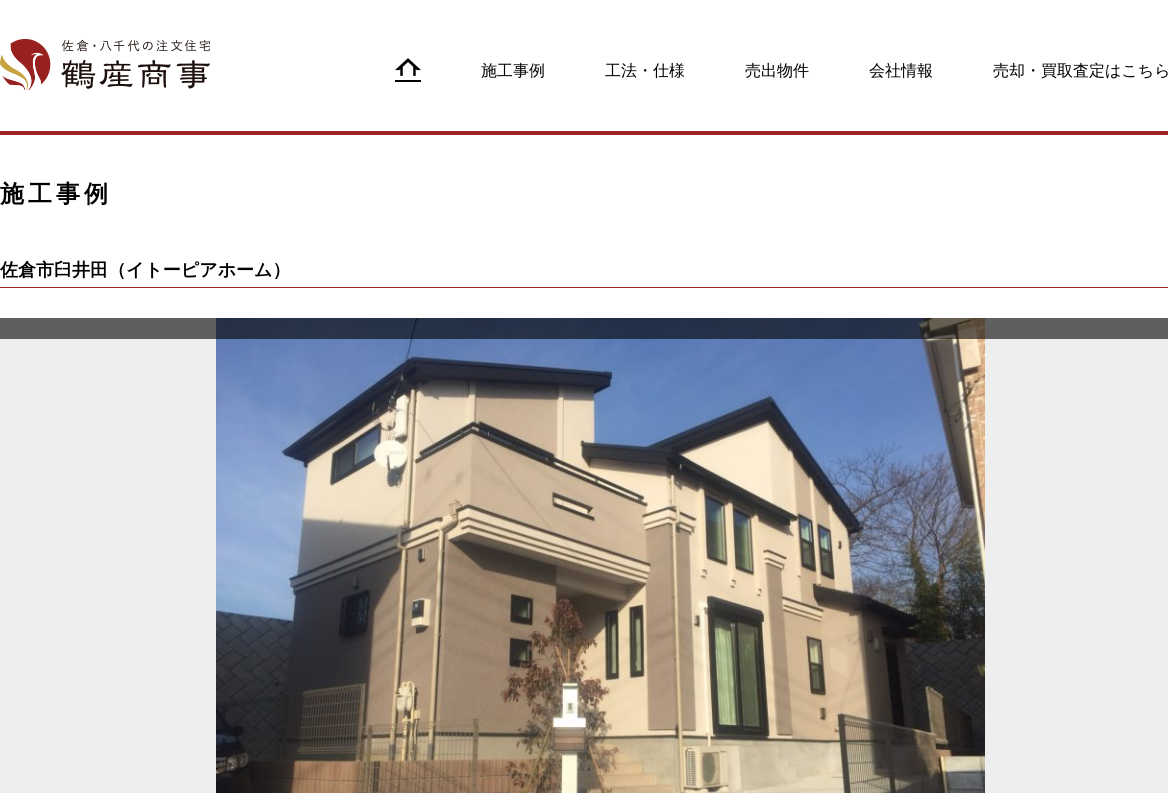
import math
import cairo

surface = cairo.ImageSurface(cairo.FORMAT_RGB24, 1168, 793)
ctx = cairo.Context(surface)
options = cairo.FontOptions()
options.set_hint_metrics(cairo.HINT_METRICS_OFF)
options.set_hint_style(cairo.HINT_STYLE_NONE)
ctx.set_font_options(options)
ctx.set_miter_limit(4)


def set_color(code):
    ctx.set_source_rgb(*(v / 255 for v in bytes.fromhex(code[-6:])))


def draw_text(x, y, s, family, size, color, bold=False, italic=False):
    ctx.select_font_face(family, cairo.FONT_SLANT_ITALIC if italic else cairo.FONT_SLANT_NORMAL, cairo.FONT_WEIGHT_BOLD if bold else cairo.FONT_WEIGHT_NORMAL)
    ctx.set_font_size(size)
    set_color(color)
    ctx.move_to(x, y)
    ctx.show_text(s)


def draw_spaced(x, y, s, letter, word):
    ctx.move_to(x, y)
    for ch in s:
        ctx.show_text(ch)
        ctx.rel_move_to(letter + word * (ch == ' '), 0)


def fill_rect(x, y, w, h, color):
    set_color(color)
    ctx.rectangle(x, y, w, h)
    ctx.fill()


def draw_image(path, x, y, w, h):
    ctx.save()
    ctx.set_source_surface(cairo.ImageSurface.create_from_png(path), x, y)
    ctx.rectangle(x, y, w, h)
    ctx.fill()
    ctx.restore()


set_color("#ffffff")
ctx.paint()
fill_rect(0, 131, 1168, 4, "#9f2424")
draw_image("assets/img1.png", 0, 39, 210, 51)
draw_image("assets/img2.png", 395, 58, 26, 18)
fill_rect(395, 80, 26, 2, "#000000")
draw_text(481, 76, "施工事例", "WenQuanYi Zen Hei Medium", 16, "#000000")
draw_text(605, 76, "工法・仕様", "WenQuanYi Zen Hei Medium", 16, "#000000")
draw_text(745, 76, "売出物件", "WenQuanYi Zen Hei Medium", 16, "#000000")
draw_text(869, 76, "会社情報", "WenQuanYi Zen Hei Medium", 16, "#000000")
draw_text(993, 76, "売却・買取査定はこちら", "WenQuanYi Zen Hei Medium", 16, "#000000")
ctx.select_font_face("WenQuanYi Zen Hei", cairo.FONT_SLANT_NORMAL, cairo.FONT_WEIGHT_BOLD)
ctx.set_font_size(24)
draw_spaced(0, 202, "施工事例", 4, 0)
fill_rect(0, 287, 1168, 1, "#9f2424")
draw_text(0, 276, "佐倉市臼井田（イトーピアホーム）", "WenQuanYi Zen Hei", 18, "#000000", bold=True)
fill_rect(0, 318, 1168, 475, "#eeeeee")
draw_image("assets/img3.png", 216, 318, 769, 475)
ctx.set_source_rgba(0, 0, 0, 0.6)
ctx.rectangle(0, 318, 1168, 21)
ctx.fill()
surface.write_to_png("output.png")
